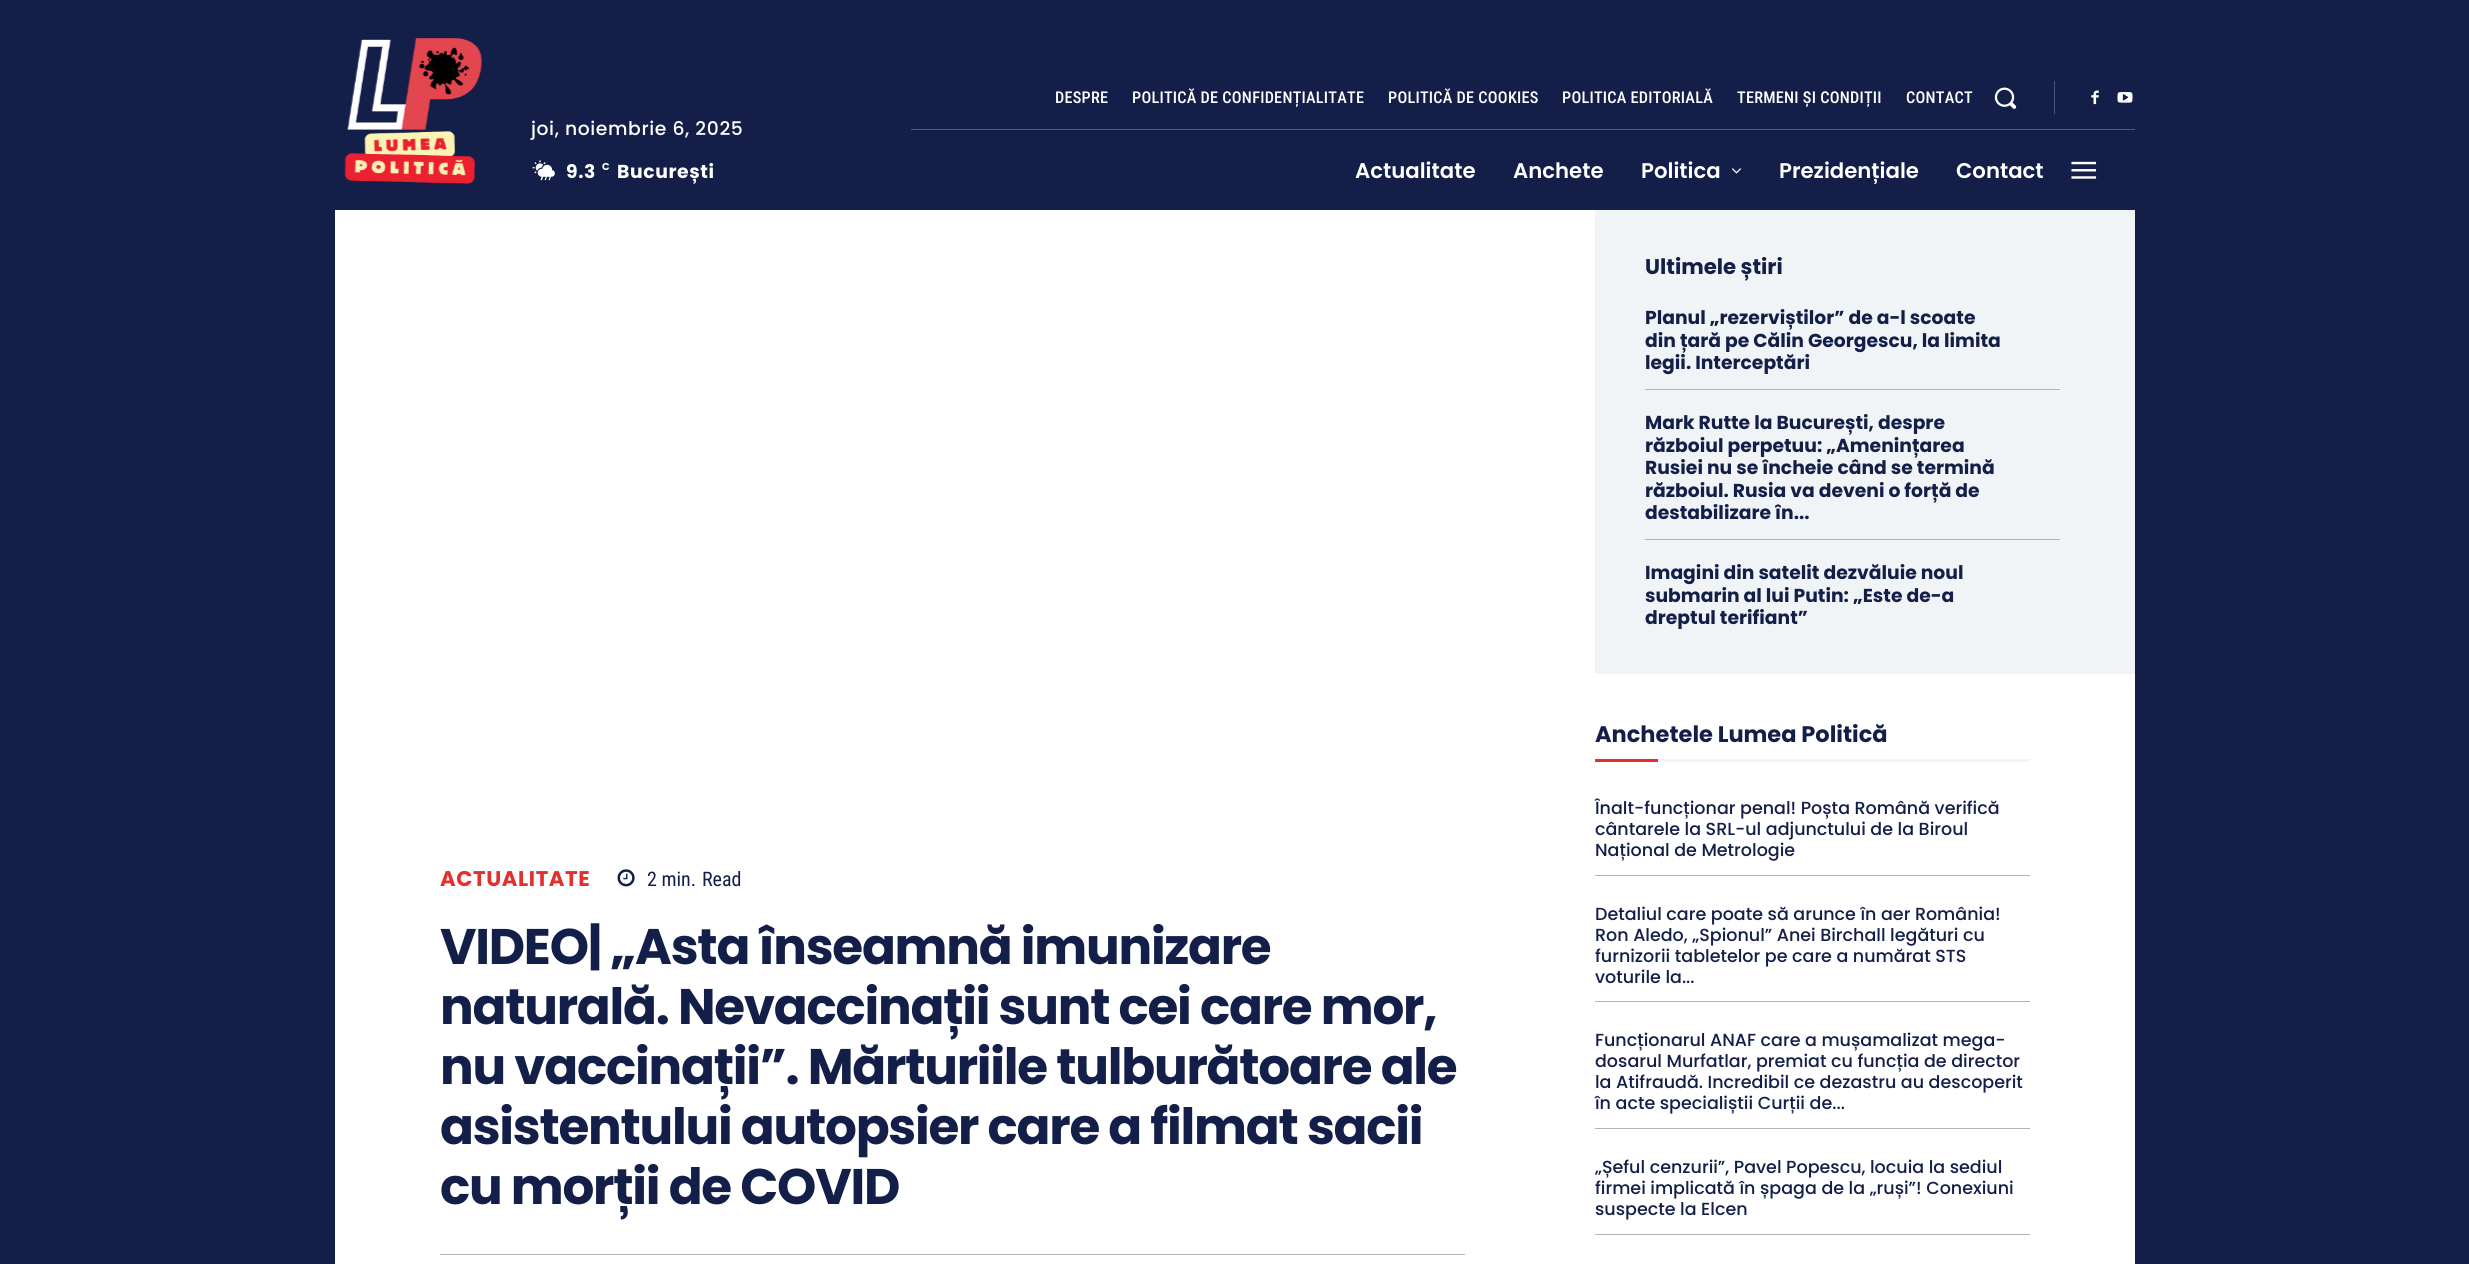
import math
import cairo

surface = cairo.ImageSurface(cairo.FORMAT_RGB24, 2469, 1264)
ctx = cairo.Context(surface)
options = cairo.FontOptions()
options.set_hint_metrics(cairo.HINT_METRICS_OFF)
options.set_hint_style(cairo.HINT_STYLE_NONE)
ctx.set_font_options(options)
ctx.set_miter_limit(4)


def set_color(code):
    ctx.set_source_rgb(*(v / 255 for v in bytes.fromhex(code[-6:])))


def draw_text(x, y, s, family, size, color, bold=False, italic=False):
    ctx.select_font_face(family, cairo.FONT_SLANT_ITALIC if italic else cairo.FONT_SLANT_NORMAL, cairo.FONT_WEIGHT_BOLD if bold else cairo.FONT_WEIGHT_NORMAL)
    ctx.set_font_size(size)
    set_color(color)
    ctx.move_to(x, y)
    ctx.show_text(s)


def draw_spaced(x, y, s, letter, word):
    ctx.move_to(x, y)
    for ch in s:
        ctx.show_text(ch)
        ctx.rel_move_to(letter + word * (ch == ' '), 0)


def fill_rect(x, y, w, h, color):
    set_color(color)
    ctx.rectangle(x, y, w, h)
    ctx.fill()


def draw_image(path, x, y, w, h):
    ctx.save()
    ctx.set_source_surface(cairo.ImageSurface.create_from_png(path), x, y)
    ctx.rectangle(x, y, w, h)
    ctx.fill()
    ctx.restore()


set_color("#131f49")
ctx.paint()
draw_image("assets/img1.png", 344, 38, 138, 146)
ctx.select_font_face("Poppins Medium")
ctx.set_font_size(18.75)
set_color("#ffffff")
draw_spaced(531, 135, "joi, noiembrie 6, 2025", 0.6, 0)
draw_image("assets/img2.png", 532, 160, 23, 21)
ctx.select_font_face("Poppins", cairo.FONT_SLANT_NORMAL, cairo.FONT_WEIGHT_BOLD)
draw_spaced(566, 178, "9.3", 0.6, 0)
ctx.set_font_size(10)
draw_spaced(602, 170, "C", 0.6, 0)
ctx.set_font_size(18.75)
draw_spaced(617, 178, "București", 0.6, 0)
ctx.select_font_face("Roboto Condensed Medium")
ctx.set_font_size(16.25)
draw_spaced(1055, 103, "DESPRE", 0.25, 0)
draw_spaced(1132, 103, "POLITICĂ DE CONFIDENȚIALITATE", 0.25, 0)
draw_spaced(1388, 103, "POLITICĂ DE COOKIES", 0.25, 0)
draw_spaced(1562, 103, "POLITICA EDITORIALĂ", 0.25, 0)
draw_spaced(1737, 103, "TERMENI ȘI CONDIȚII", 0.25, 0)
draw_spaced(1906, 103, "CONTACT", 0.25, 0)
draw_image("assets/img3.png", 1994, 87, 23, 22)
fill_rect(2054, 81, 1, 33, "#4e5777")
draw_image("assets/img4.png", 2091, 90, 8, 15)
draw_image("assets/img5.png", 2117, 92, 16, 11)
fill_rect(911, 129, 1224, 1, "#4e5777")
draw_text(1355, 178, "Actualitate", "Poppins SemiBold", 21.25, "#ffffff")
draw_text(1513, 178, "Anchete", "Poppins SemiBold", 21.25, "#ffffff")
draw_text(1641, 178, "Politica", "Poppins SemiBold", 21.25, "#ffffff")
draw_image("assets/img6.png", 1732, 168, 9, 6)
draw_text(1779, 178, "Prezidențiale", "Poppins SemiBold", 21.25, "#ffffff")
draw_text(1956, 178, "Contact", "Poppins SemiBold", 21.25, "#ffffff")
draw_image("assets/img7.png", 2071, 161, 26, 18)
fill_rect(335, 210, 1800, 1054, "#ffffff")
ctx.select_font_face("Poppins", cairo.FONT_SLANT_NORMAL, cairo.FONT_WEIGHT_BOLD)
set_color("#e52e2e")
draw_spaced(440, 886, "ACTUALITATE", 0.6, 0)
draw_image("assets/img8.png", 617, 869, 18, 18)
draw_text(647, 886, "2 min.", "Roboto Condensed", 20, "#131f49")
draw_text(702, 886, "Read", "Roboto Condensed", 20, "#131f49")
ctx.select_font_face("Poppins", cairo.FONT_SLANT_NORMAL, cairo.FONT_WEIGHT_BOLD)
ctx.set_font_size(50)
draw_spaced(440, 964, "VIDEO| „Asta înseamnă imunizare", -1.25, 0)
draw_spaced(440, 1024, "naturală. Nevaccinații sunt cei care mor,", -1.25, 0)
draw_spaced(440, 1084, "nu vaccinații”. Mărturiile tulburătoare ale", -1.25, 0)
draw_spaced(440, 1144, "asistentului autopsier care a filmat sacii", -1.25, 0)
draw_spaced(440, 1204, "cu morții de COVID", -1.25, 0)
fill_rect(440, 1254, 1025, 1, "#b1b4bc")
fill_rect(1595, 210, 540, 464, "#f1f4f7")
draw_text(1645, 274, "Ultimele știri", "Poppins", 21.25, "#131f49", bold=True)
draw_text(1645, 324, "Planul „rezerviștilor” de a-l scoate", "Poppins", 18.75, "#131f49", bold=True)
draw_text(1645, 347, "din țară pe Călin Georgescu, la limita", "Poppins", 18.75, "#131f49", bold=True)
draw_text(1645, 369, "legii. Interceptări", "Poppins", 18.75, "#131f49", bold=True)
fill_rect(1645, 389, 415, 1, "#b1b4bc")
draw_text(1645, 429, "Mark Rutte la București, despre", "Poppins", 18.75, "#131f49", bold=True)
draw_text(1645, 452, "războiul perpetuu: „Amenințarea", "Poppins", 18.75, "#131f49", bold=True)
draw_text(1645, 474, "Rusiei nu se încheie când se termină", "Poppins", 18.75, "#131f49", bold=True)
draw_text(1645, 497, "războiul. Rusia va deveni o forță de", "Poppins", 18.75, "#131f49", bold=True)
draw_text(1645, 519, "destabilizare în...", "Poppins", 18.75, "#131f49", bold=True)
fill_rect(1645, 539, 415, 1, "#b1b4bc")
draw_text(1645, 579, "Imagini din satelit dezvăluie noul", "Poppins", 18.75, "#131f49", bold=True)
draw_text(1645, 602, "submarin al lui Putin: „Este de-a", "Poppins", 18.75, "#131f49", bold=True)
draw_text(1645, 624, "dreptul terifiant”", "Poppins", 18.75, "#131f49", bold=True)
draw_text(1595, 742, "Anchetele Lumea Politică", "Poppins", 22.5, "#131f49", bold=True)
fill_rect(1595, 759, 63, 3, "#e52e2e")
fill_rect(1658, 759, 372, 3, "#f5f5f5")
draw_text(1595, 814, "Înalt-funcționar penal! Poșta Română verifică", "Poppins Medium", 17.5, "#131f49")
draw_text(1595, 835, "cântarele la SRL-ul adjunctului de la Biroul", "Poppins Medium", 17.5, "#131f49")
draw_text(1595, 856, "Național de Metrologie", "Poppins Medium", 17.5, "#131f49")
fill_rect(1595, 875, 435, 1, "#b1b4bc")
draw_text(1595, 920, "Detaliul care poate să arunce în aer România!", "Poppins Medium", 17.5, "#131f49")
draw_text(1595, 941, "Ron Aledo, „Spionul” Anei Birchall legături cu", "Poppins Medium", 17.5, "#131f49")
draw_text(1595, 962, "furnizorii tabletelor pe care a numărat STS", "Poppins Medium", 17.5, "#131f49")
draw_text(1595, 983, "voturile la...", "Poppins Medium", 17.5, "#131f49")
fill_rect(1595, 1001, 435, 1, "#b1b4bc")
draw_text(1595, 1046, "Funcționarul ANAF care a mușamalizat mega-", "Poppins Medium", 17.5, "#131f49")
draw_text(1595, 1067, "dosarul Murfatlar, premiat cu funcția de director", "Poppins Medium", 17.5, "#131f49")
draw_text(1595, 1088, "la Atifraudă. Incredibil ce dezastru au descoperit", "Poppins Medium", 17.5, "#131f49")
draw_text(1595, 1109, "în acte specialiștii Curții de...", "Poppins Medium", 17.5, "#131f49")
fill_rect(1595, 1128, 435, 1, "#b1b4bc")
draw_text(1595, 1173, "„Șeful cenzurii”, Pavel Popescu, locuia la sediul", "Poppins Medium", 17.5, "#131f49")
draw_text(1595, 1194, "firmei implicată în șpaga de la „ruși”! Conexiuni", "Poppins Medium", 17.5, "#131f49")
draw_text(1595, 1215, "suspecte la Elcen", "Poppins Medium", 17.5, "#131f49")
fill_rect(1595, 1234, 435, 1, "#b1b4bc")
surface.write_to_png("output.png")
